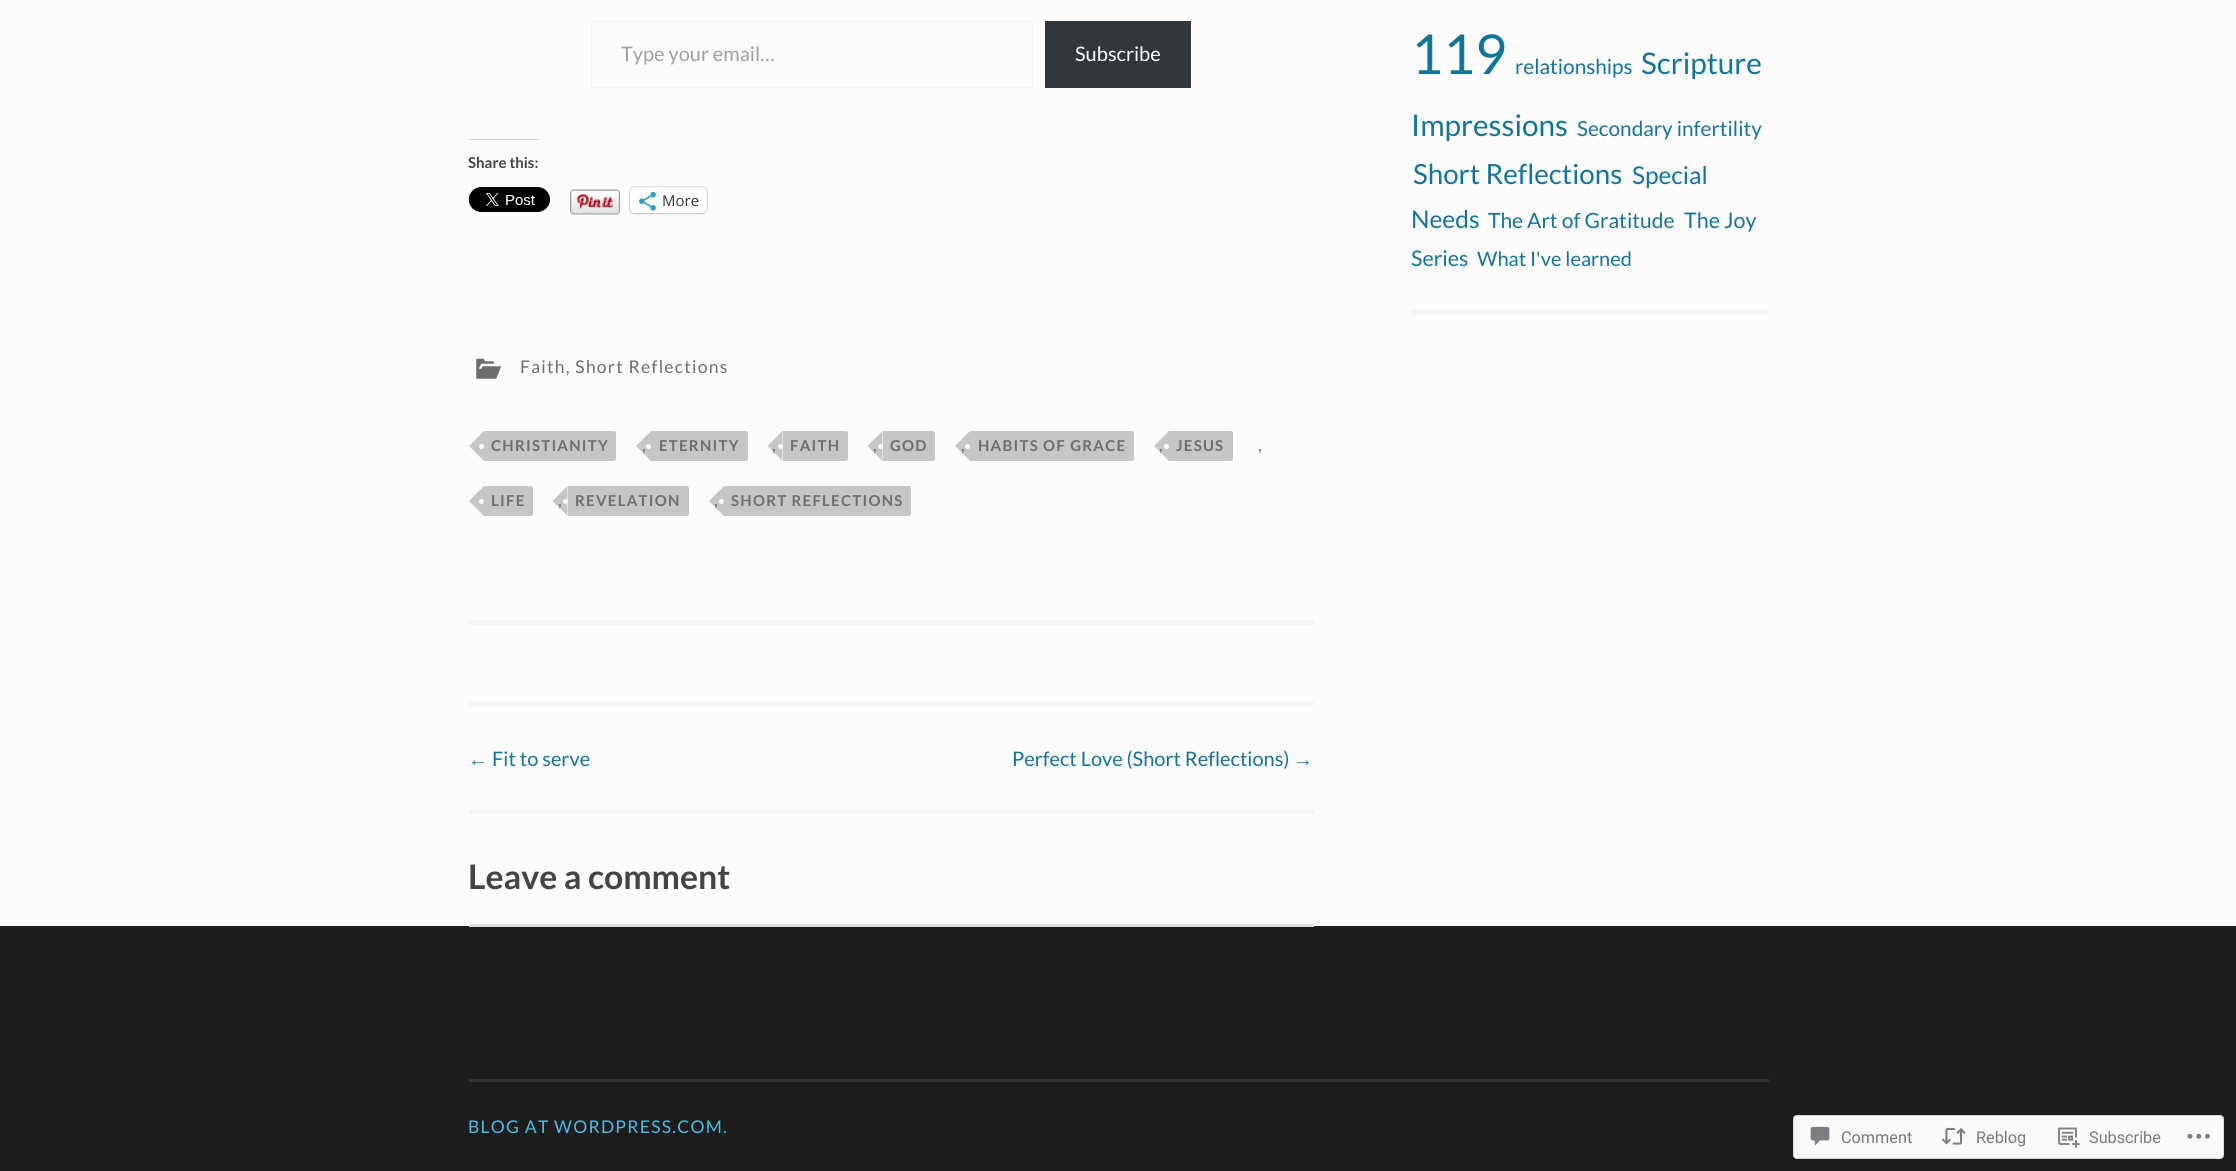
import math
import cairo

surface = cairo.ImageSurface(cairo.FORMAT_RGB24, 2236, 1171)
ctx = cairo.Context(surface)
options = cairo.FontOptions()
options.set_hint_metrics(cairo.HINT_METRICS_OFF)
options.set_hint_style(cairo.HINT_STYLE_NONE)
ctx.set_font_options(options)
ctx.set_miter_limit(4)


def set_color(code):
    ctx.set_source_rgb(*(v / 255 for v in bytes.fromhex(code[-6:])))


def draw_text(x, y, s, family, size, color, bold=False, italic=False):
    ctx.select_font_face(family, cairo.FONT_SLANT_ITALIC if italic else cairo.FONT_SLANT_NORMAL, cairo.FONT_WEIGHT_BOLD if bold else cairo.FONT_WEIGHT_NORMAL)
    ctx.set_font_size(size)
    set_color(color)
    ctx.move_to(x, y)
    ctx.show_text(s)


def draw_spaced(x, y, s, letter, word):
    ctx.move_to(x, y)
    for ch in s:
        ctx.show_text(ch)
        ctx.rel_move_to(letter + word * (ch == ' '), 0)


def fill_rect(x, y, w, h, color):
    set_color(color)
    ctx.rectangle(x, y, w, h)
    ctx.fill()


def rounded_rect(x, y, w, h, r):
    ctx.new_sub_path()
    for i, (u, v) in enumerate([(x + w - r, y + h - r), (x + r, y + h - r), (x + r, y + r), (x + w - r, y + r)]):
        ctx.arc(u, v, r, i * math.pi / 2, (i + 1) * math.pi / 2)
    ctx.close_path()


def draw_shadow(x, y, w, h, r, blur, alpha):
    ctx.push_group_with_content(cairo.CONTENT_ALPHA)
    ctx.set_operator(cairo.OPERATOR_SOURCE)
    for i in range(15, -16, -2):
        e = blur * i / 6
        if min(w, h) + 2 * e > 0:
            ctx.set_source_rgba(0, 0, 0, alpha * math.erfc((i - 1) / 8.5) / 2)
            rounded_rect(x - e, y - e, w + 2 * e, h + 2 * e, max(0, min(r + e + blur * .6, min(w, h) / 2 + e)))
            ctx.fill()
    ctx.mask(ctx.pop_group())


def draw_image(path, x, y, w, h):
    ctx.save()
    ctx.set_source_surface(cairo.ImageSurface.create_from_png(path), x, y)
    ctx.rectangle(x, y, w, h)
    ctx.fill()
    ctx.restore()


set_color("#fcfcfc")
ctx.paint()
fill_rect(469, 620, 845, 5, "#f5f5f5")
ctx.rectangle(591.5, 21.5, 441, 66)
set_color("#f4f4f4")
ctx.set_line_width(1)
ctx.stroke()
draw_text(621, 61, "Type your email…", "Lato", 20, "#9f9f9f")
fill_rect(1045, 21, 146, 67, "#32373c")
draw_text(1075, 61, "Subscribe", "Lato", 20, "#ffffff")
fill_rect(469, 139, 70, 1, "#dcdcde")
draw_text(468, 168, "Share this:", "Lato", 15, "#444444", bold=True)
draw_image("assets/img1.png", 468, 187, 82, 25)
draw_image("assets/img2.png", 570, 189, 50, 26)
rounded_rect(629.5, 186.5, 78, 27, 5.5)
set_color("#dedede")
ctx.stroke()
set_color("#000000")
draw_shadow(630, 189, 76, 25, 5, 1, 0.12)
set_color("#ffffff")
rounded_rect(630, 188, 76, 25, 5)
ctx.fill()
draw_image("assets/img3.png", 639, 191, 17, 20)
draw_text(662, 206, "More", "Open Sans", 15, "#2c3338")
draw_image("assets/img4.png", 476, 358, 26, 21)
ctx.select_font_face("Lato")
ctx.set_font_size(17.5)
set_color("#6d6d6d")
draw_spaced(520, 373, "Faith, Short Reflections", 1.25, 0)
set_color("#c6c6c6")
ctx.new_path()
ctx.move_to(484, 431)
ctx.line_to(613.5, 431)
ctx.curve_to(615, 431, 616, 432, 616, 433.5)
ctx.line_to(616, 458.5)
ctx.curve_to(616, 460, 615, 461, 613.5, 461)
ctx.line_to(484, 461)
ctx.close_path()
ctx.fill()
ctx.new_path()
ctx.move_to(484, 431)
ctx.line_to(484, 461)
ctx.line_to(469, 446)
ctx.close_path()
ctx.fill()
ctx.select_font_face("Lato", cairo.FONT_SLANT_NORMAL, cairo.FONT_WEIGHT_BOLD)
ctx.set_font_size(15)
set_color("#6d6d6d")
draw_spaced(491, 451, "CHRISTIANITY", 1.25, 0)
set_color("#fcfcfc")
ctx.new_path()
ctx.arc(481.5, 446.5, 2.5, 0, 2 * math.pi)
ctx.fill()
ctx.select_font_face("Lato")
ctx.set_font_size(17.5)
set_color("#6d6d6d")
draw_spaced(642, 451, ",", 1.25, 0)
set_color("#c6c6c6")
ctx.new_path()
ctx.move_to(651, 431)
ctx.line_to(745.5, 431)
ctx.curve_to(747, 431, 748, 432, 748, 433.5)
ctx.line_to(748, 458.5)
ctx.curve_to(748, 460, 747, 461, 745.5, 461)
ctx.line_to(651, 461)
ctx.close_path()
ctx.fill()
ctx.set_source_rgba(0.463, 0.463, 0.463, 0.4)
ctx.new_path()
ctx.move_to(651, 431)
ctx.line_to(651, 461)
ctx.line_to(636, 446)
ctx.close_path()
ctx.fill()
ctx.select_font_face("Lato", cairo.FONT_SLANT_NORMAL, cairo.FONT_WEIGHT_BOLD)
ctx.set_font_size(15)
set_color("#6d6d6d")
draw_spaced(659, 451, "ETERNITY", 1.25, 0)
set_color("#fcfcfc")
ctx.new_path()
ctx.arc(648.5, 446.5, 2.5, 0, 2 * math.pi)
ctx.fill()
ctx.select_font_face("Lato")
ctx.set_font_size(17.5)
set_color("#6d6d6d")
draw_spaced(772, 451, ",", 1.25, 0)
set_color("#c6c6c6")
ctx.new_path()
ctx.move_to(783, 431)
ctx.line_to(845.5, 431)
ctx.curve_to(847, 431, 848, 432, 848, 433.5)
ctx.line_to(848, 458.5)
ctx.curve_to(848, 460, 847, 461, 845.5, 461)
ctx.line_to(783, 461)
ctx.close_path()
ctx.fill()
ctx.set_source_rgba(0.463, 0.463, 0.463, 0.4)
ctx.new_path()
ctx.move_to(782.5, 431)
ctx.line_to(782.5, 461)
ctx.line_to(767.5, 446)
ctx.close_path()
ctx.fill()
ctx.select_font_face("Lato", cairo.FONT_SLANT_NORMAL, cairo.FONT_WEIGHT_BOLD)
ctx.set_font_size(15)
set_color("#6d6d6d")
draw_spaced(790, 451, "FAITH", 1.25, 0)
set_color("#fcfcfc")
ctx.new_path()
ctx.arc(780.5, 446.5, 2.5, 0, 2 * math.pi)
ctx.fill()
ctx.select_font_face("Lato")
ctx.set_font_size(17.5)
set_color("#6d6d6d")
draw_spaced(873, 451, ",", 1.25, 0)
set_color("#c6c6c6")
ctx.new_path()
ctx.move_to(883, 431)
ctx.line_to(932.5, 431)
ctx.curve_to(934, 431, 935, 432, 935, 433.5)
ctx.line_to(935, 458.5)
ctx.curve_to(935, 460, 934, 461, 932.5, 461)
ctx.line_to(883, 461)
ctx.close_path()
ctx.fill()
ctx.set_source_rgba(0.463, 0.463, 0.463, 0.4)
ctx.new_path()
ctx.move_to(882.5, 431)
ctx.line_to(882.5, 461)
ctx.line_to(867.5, 446)
ctx.close_path()
ctx.fill()
ctx.select_font_face("Lato", cairo.FONT_SLANT_NORMAL, cairo.FONT_WEIGHT_BOLD)
ctx.set_font_size(15)
set_color("#6d6d6d")
draw_spaced(890, 451, "GOD", 1.25, 0)
set_color("#fcfcfc")
ctx.new_path()
ctx.arc(880.5, 446.5, 2.5, 0, 2 * math.pi)
ctx.fill()
ctx.select_font_face("Lato")
ctx.set_font_size(17.5)
set_color("#6d6d6d")
draw_spaced(961, 451, ",", 1.25, 0)
set_color("#c6c6c6")
ctx.new_path()
ctx.move_to(970, 431)
ctx.line_to(1131.5, 431)
ctx.curve_to(1133, 431, 1134, 432, 1134, 433.5)
ctx.line_to(1134, 458.5)
ctx.curve_to(1134, 460, 1133, 461, 1131.5, 461)
ctx.line_to(970, 461)
ctx.close_path()
ctx.fill()
ctx.set_source_rgba(0.463, 0.463, 0.463, 0.4)
ctx.new_path()
ctx.move_to(970, 431)
ctx.line_to(970, 461)
ctx.line_to(955, 446)
ctx.close_path()
ctx.fill()
ctx.select_font_face("Lato", cairo.FONT_SLANT_NORMAL, cairo.FONT_WEIGHT_BOLD)
ctx.set_font_size(15)
set_color("#6d6d6d")
draw_spaced(978, 451, "HABITS OF GRACE", 1.25, 0)
set_color("#fcfcfc")
ctx.new_path()
ctx.arc(967.5, 446.5, 2.5, 0, 2 * math.pi)
ctx.fill()
ctx.select_font_face("Lato")
ctx.set_font_size(17.5)
set_color("#6d6d6d")
draw_spaced(1159, 451, ",", 1.25, 0)
set_color("#c6c6c6")
ctx.new_path()
ctx.move_to(1169, 431)
ctx.line_to(1230.5, 431)
ctx.curve_to(1232, 431, 1233, 432, 1233, 433.5)
ctx.line_to(1233, 458.5)
ctx.curve_to(1233, 460, 1232, 461, 1230.5, 461)
ctx.line_to(1169, 461)
ctx.close_path()
ctx.fill()
ctx.set_source_rgba(0.463, 0.463, 0.463, 0.4)
ctx.new_path()
ctx.move_to(1169, 431)
ctx.line_to(1169, 461)
ctx.line_to(1154, 446)
ctx.close_path()
ctx.fill()
ctx.select_font_face("Lato", cairo.FONT_SLANT_NORMAL, cairo.FONT_WEIGHT_BOLD)
ctx.set_font_size(15)
set_color("#6d6d6d")
draw_spaced(1176, 451, "JESUS", 1.25, 0)
set_color("#fcfcfc")
ctx.new_path()
ctx.arc(1166.5, 446.5, 2.5, 0, 2 * math.pi)
ctx.fill()
ctx.select_font_face("Lato")
ctx.set_font_size(17.5)
set_color("#6d6d6d")
draw_spaced(1258, 451, ",", 1.25, 0)
set_color("#c6c6c6")
ctx.new_path()
ctx.move_to(484, 486)
ctx.line_to(530.5, 486)
ctx.curve_to(532, 486, 533, 487, 533, 488.5)
ctx.line_to(533, 513.5)
ctx.curve_to(533, 515, 532, 516, 530.5, 516)
ctx.line_to(484, 516)
ctx.close_path()
ctx.fill()
ctx.new_path()
ctx.move_to(484, 486)
ctx.line_to(484, 516)
ctx.line_to(469, 501)
ctx.close_path()
ctx.fill()
ctx.select_font_face("Lato", cairo.FONT_SLANT_NORMAL, cairo.FONT_WEIGHT_BOLD)
ctx.set_font_size(15)
set_color("#6d6d6d")
draw_spaced(491, 506, "LIFE", 1.25, 0)
set_color("#fcfcfc")
ctx.new_path()
ctx.arc(481.5, 501.5, 2.5, 0, 2 * math.pi)
ctx.fill()
ctx.select_font_face("Lato")
ctx.set_font_size(17.5)
set_color("#6d6d6d")
draw_spaced(558, 506, ",", 1.25, 0)
set_color("#c6c6c6")
ctx.new_path()
ctx.move_to(568, 486)
ctx.line_to(686.5, 486)
ctx.curve_to(688, 486, 689, 487, 689, 488.5)
ctx.line_to(689, 513.5)
ctx.curve_to(689, 515, 688, 516, 686.5, 516)
ctx.line_to(568, 516)
ctx.close_path()
ctx.fill()
ctx.set_source_rgba(0.463, 0.463, 0.463, 0.4)
ctx.new_path()
ctx.move_to(567.5, 486)
ctx.line_to(567.5, 516)
ctx.line_to(552.5, 501)
ctx.close_path()
ctx.fill()
ctx.select_font_face("Lato", cairo.FONT_SLANT_NORMAL, cairo.FONT_WEIGHT_BOLD)
ctx.set_font_size(15)
set_color("#6d6d6d")
draw_spaced(575, 506, "REVELATION", 1.25, 0)
set_color("#fcfcfc")
ctx.new_path()
ctx.arc(565.5, 501.5, 2.5, 0, 2 * math.pi)
ctx.fill()
ctx.select_font_face("Lato")
ctx.set_font_size(17.5)
set_color("#6d6d6d")
draw_spaced(714, 506, ",", 1.25, 0)
set_color("#c6c6c6")
ctx.new_path()
ctx.move_to(724, 486)
ctx.line_to(908.5, 486)
ctx.curve_to(910, 486, 911, 487, 911, 488.5)
ctx.line_to(911, 513.5)
ctx.curve_to(911, 515, 910, 516, 908.5, 516)
ctx.line_to(724, 516)
ctx.close_path()
ctx.fill()
ctx.set_source_rgba(0.463, 0.463, 0.463, 0.4)
ctx.new_path()
ctx.move_to(724, 486)
ctx.line_to(724, 516)
ctx.line_to(709, 501)
ctx.close_path()
ctx.fill()
ctx.select_font_face("Lato", cairo.FONT_SLANT_NORMAL, cairo.FONT_WEIGHT_BOLD)
ctx.set_font_size(15)
set_color("#6d6d6d")
draw_spaced(731, 506, "SHORT REFLECTIONS", 1.25, 0)
set_color("#fcfcfc")
ctx.new_path()
ctx.arc(721.5, 501.5, 2.5, 0, 2 * math.pi)
ctx.fill()
fill_rect(469, 701, 845, 5, "#f5f5f5")
fill_rect(469, 809, 845, 5, "#f5f5f5")
draw_text(468, 766, "←", "Liberation Sans", 20, "#10759c")
draw_text(492, 766, "Fit to serve", "Lato", 20, "#10759c")
draw_text(1012, 766, "Perfect Love (Short Reflections)", "Lato", 20, "#10759c")
draw_text(1293, 766, "→", "Liberation Sans", 20, "#10759c")
draw_text(468, 889, "Leave a comment", "Lato", 33.75, "#444444", bold=True)
fill_rect(0, 926, 2236, 245, "#1d1d1d")
fill_rect(469, 924, 845, 3, "#dcdcde")
fill_rect(1411, 310, 358, 5, "#f5f5f5")
draw_text(1411, 74, "119", "Lato", 55, "#10759c")
draw_text(1515, 74, "relationships", "Lato", 20.75, "#10759c")
draw_text(1641, 74, "Scripture", "Lato", 29.75, "#10759c")
draw_text(1411, 136, "Impressions", "Lato", 29.75, "#10759c")
draw_text(1577, 136, "Secondary infertility", "Lato", 20.75, "#10759c")
draw_text(1413, 184, "Short Reflections", "Lato", 27.75, "#10759c")
draw_text(1632, 184, "Special", "Lato", 24.5, "#10759c")
draw_text(1411, 228, "Needs", "Lato", 24.5, "#10759c")
draw_text(1488, 228, "The Art of Gratitude", "Lato", 21, "#10759c")
draw_text(1684, 228, "The Joy", "Lato", 21.5, "#10759c")
draw_text(1411, 266, "Series", "Lato", 21.5, "#10759c")
draw_text(1477, 266, "What I've learned", "Lato", 20, "#10759c")
fill_rect(469, 1079, 1300, 3, "#343434")
ctx.set_font_size(17.5)
set_color("#4dbce9")
draw_spaced(468, 1133, "BLOG AT WORDPRESS.COM.", 1.25, 0)
set_color("#fafafa")
rounded_rect(1793.5, 1115.5, 430, 43, 3.5)
ctx.fill_preserve()
set_color("#d8d8da")
ctx.stroke()
draw_image("assets/img5.png", 1810, 1126, 20, 20)
draw_text(1841, 1143, "Comment", "Roboto", 16.25, "#767a80")
draw_image("assets/img6.png", 1941, 1127, 25, 18)
draw_text(1976, 1143, "Reblog", "Roboto", 16.25, "#767a80")
draw_image("assets/img7.png", 2058, 1127, 22, 21)
draw_text(2089, 1143, "Subscribe", "Roboto", 16.25, "#767a80")
draw_image("assets/img8.png", 2187, 1133, 23, 6)
surface.write_to_png("output.png")
